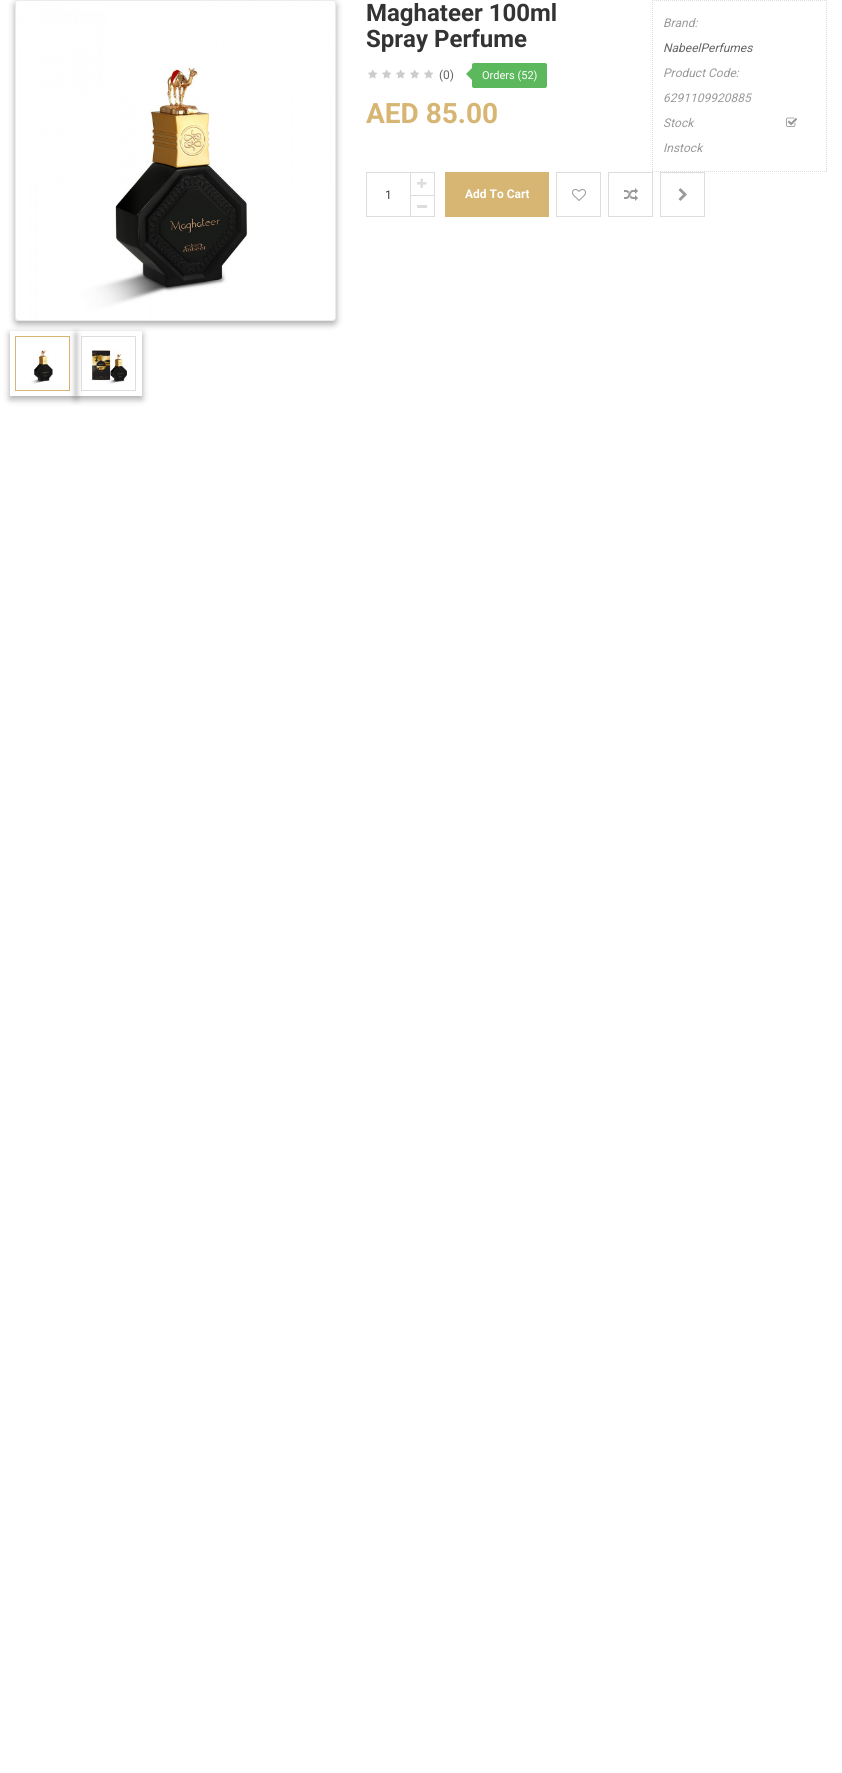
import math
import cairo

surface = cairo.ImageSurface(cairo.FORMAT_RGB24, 842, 1773)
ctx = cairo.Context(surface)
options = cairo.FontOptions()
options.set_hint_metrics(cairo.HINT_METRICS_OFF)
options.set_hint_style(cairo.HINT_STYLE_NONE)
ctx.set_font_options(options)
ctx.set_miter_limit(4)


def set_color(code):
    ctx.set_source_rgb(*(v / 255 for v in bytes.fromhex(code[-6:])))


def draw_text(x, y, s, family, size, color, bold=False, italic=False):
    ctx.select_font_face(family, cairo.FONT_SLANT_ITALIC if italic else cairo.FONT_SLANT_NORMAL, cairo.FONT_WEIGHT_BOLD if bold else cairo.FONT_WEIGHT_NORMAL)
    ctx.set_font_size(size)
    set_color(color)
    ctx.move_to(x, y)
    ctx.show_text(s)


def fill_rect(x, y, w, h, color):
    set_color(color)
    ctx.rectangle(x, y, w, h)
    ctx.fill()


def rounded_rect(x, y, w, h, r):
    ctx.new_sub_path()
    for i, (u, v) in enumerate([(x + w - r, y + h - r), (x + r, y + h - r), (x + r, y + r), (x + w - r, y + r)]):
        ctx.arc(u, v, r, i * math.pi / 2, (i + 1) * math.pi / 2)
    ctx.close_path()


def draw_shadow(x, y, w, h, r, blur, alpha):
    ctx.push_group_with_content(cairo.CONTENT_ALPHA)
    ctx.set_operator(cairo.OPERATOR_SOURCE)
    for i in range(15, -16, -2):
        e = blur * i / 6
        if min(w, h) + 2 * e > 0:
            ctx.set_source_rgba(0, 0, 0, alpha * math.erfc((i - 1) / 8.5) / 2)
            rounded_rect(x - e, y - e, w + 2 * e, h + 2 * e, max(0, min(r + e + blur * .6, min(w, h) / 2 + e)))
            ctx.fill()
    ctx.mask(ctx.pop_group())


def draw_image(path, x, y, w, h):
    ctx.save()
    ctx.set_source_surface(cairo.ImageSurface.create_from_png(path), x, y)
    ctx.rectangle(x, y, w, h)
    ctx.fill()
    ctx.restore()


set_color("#ffffff")
ctx.paint()
set_color("#000000")
draw_shadow(15, 3, 321, 321, 3, 3.5, 0.35)
rounded_rect(15.5, 0.5, 320, 320, 2.5)
set_color("#ebebeb")
ctx.set_line_width(1)
ctx.stroke()
draw_image("assets/img1.png", 16, 1, 319, 319)
ctx.save()
ctx.set_fill_rule(cairo.FILL_RULE_EVEN_ODD)
ctx.new_path()
ctx.move_to(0, 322)
ctx.line_to(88, 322)
ctx.line_to(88, 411)
ctx.line_to(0, 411)
ctx.close_path()
ctx.move_to(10, 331)
ctx.line_to(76, 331)
ctx.line_to(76, 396)
ctx.line_to(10, 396)
ctx.close_path()
ctx.clip()
set_color("#000000")
draw_shadow(10, 334, 66, 65, 0, 3.5, 0.35)
ctx.restore()
ctx.rectangle(15.5, 336.5, 54, 54)
set_color("#d7b573")
ctx.stroke()
draw_image("assets/img2.png", 31, 350, 22, 34)
ctx.save()
ctx.set_fill_rule(cairo.FILL_RULE_EVEN_ODD)
ctx.new_path()
ctx.move_to(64, 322)
ctx.line_to(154, 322)
ctx.line_to(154, 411)
ctx.line_to(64, 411)
ctx.close_path()
ctx.move_to(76, 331)
ctx.line_to(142, 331)
ctx.line_to(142, 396)
ctx.line_to(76, 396)
ctx.close_path()
ctx.clip()
set_color("#000000")
draw_shadow(76, 334, 66, 65, 0, 3.5, 0.35)
ctx.restore()
fill_rect(82, 339, 1, 51, "#ffffff")
ctx.rectangle(81.5, 336.5, 54, 54)
set_color("#dddddd")
ctx.stroke()
draw_image("assets/img3.png", 90, 350, 37, 34)
draw_text(366, 21, "Maghateer 100ml", "Roboto", 24, "#333333", bold=True)
draw_text(366, 47, "Spray Perfume", "Roboto", 24, "#333333", bold=True)
draw_image("assets/img4.png", 368, 69, 9, 10)
draw_image("assets/img4.png", 382, 69, 9, 10)
draw_image("assets/img4.png", 396, 69, 9, 10)
draw_image("assets/img4.png", 410, 69, 9, 10)
draw_image("assets/img4.png", 424, 69, 9, 10)
draw_text(439, 79, "(0)", "Roboto", 12, "#666666")
set_color("#5cb85c")
rounded_rect(472, 63, 75, 25, 2)
ctx.fill()
ctx.new_path()
ctx.move_to(473, 67)
ctx.line_to(473, 81)
ctx.line_to(466, 74)
ctx.close_path()
ctx.fill()
draw_text(482, 79, "Orders (52)", "Roboto", 11, "#ffffff")
draw_text(366, 123, "AED 85.00", "Roboto", 28, "#d7b573", bold=True)
ctx.new_path()
ctx.move_to(652, 0.5)
ctx.line_to(827, 0.5)
set_color("#dddddd")
ctx.set_dash([1, 1])
ctx.stroke()
ctx.new_path()
ctx.move_to(826.5, 0)
ctx.line_to(826.5, 172)
ctx.stroke()
ctx.new_path()
ctx.move_to(652, 171.5)
ctx.line_to(827, 171.5)
ctx.stroke()
ctx.new_path()
ctx.move_to(652.5, 0)
ctx.line_to(652.5, 172)
ctx.stroke()
draw_text(663, 27, "Brand:", "Roboto", 12, "#999999", italic=True)
draw_text(663, 52, "NabeelPerfumes", "Roboto", 12, "#666666", italic=True)
draw_text(663, 77, "Product Code:", "Roboto", 12, "#999999", italic=True)
draw_text(663, 102, "6291109920885", "Roboto", 12, "#999999", italic=True)
draw_text(663, 127, "Stock", "Roboto", 12, "#999999", italic=True)
draw_image("assets/img5.png", 786, 117, 12, 10)
draw_text(663, 152, "Instock", "Roboto", 12, "#999999", italic=True)
ctx.rectangle(366.5, 172.5, 44, 44)
set_color("#dddddd")
ctx.set_dash([])
ctx.stroke()
draw_text(385, 199, "1", "Roboto", 12, "#3d3d3d")
fill_rect(410, 172, 25, 1, "#dddddd")
fill_rect(434, 172, 1, 23, "#dddddd")
draw_image("assets/img6.png", 417, 178, 10, 10)
fill_rect(410, 195, 25, 1, "#dddddd")
fill_rect(434, 195, 1, 22, "#dddddd")
fill_rect(410, 216, 25, 1, "#dddddd")
fill_rect(417, 205, 10, 3, "#dddddd")
fill_rect(445, 172, 104, 45, "#d7b573")
draw_text(465, 198, "Add To Cart", "Roboto", 12, "#ffffff", bold=True)
ctx.rectangle(556.5, 172.5, 44, 44)
set_color("#dddddd")
ctx.stroke()
draw_image("assets/img7.png", 572, 189, 14, 12)
ctx.rectangle(608.5, 172.5, 44, 44)
ctx.stroke()
draw_image("assets/img8.png", 624, 188, 14, 13)
ctx.rectangle(660.5, 172.5, 44, 44)
ctx.stroke()
draw_image("assets/img9.png", 678, 188, 9, 13)
surface.write_to_png("output.png")
